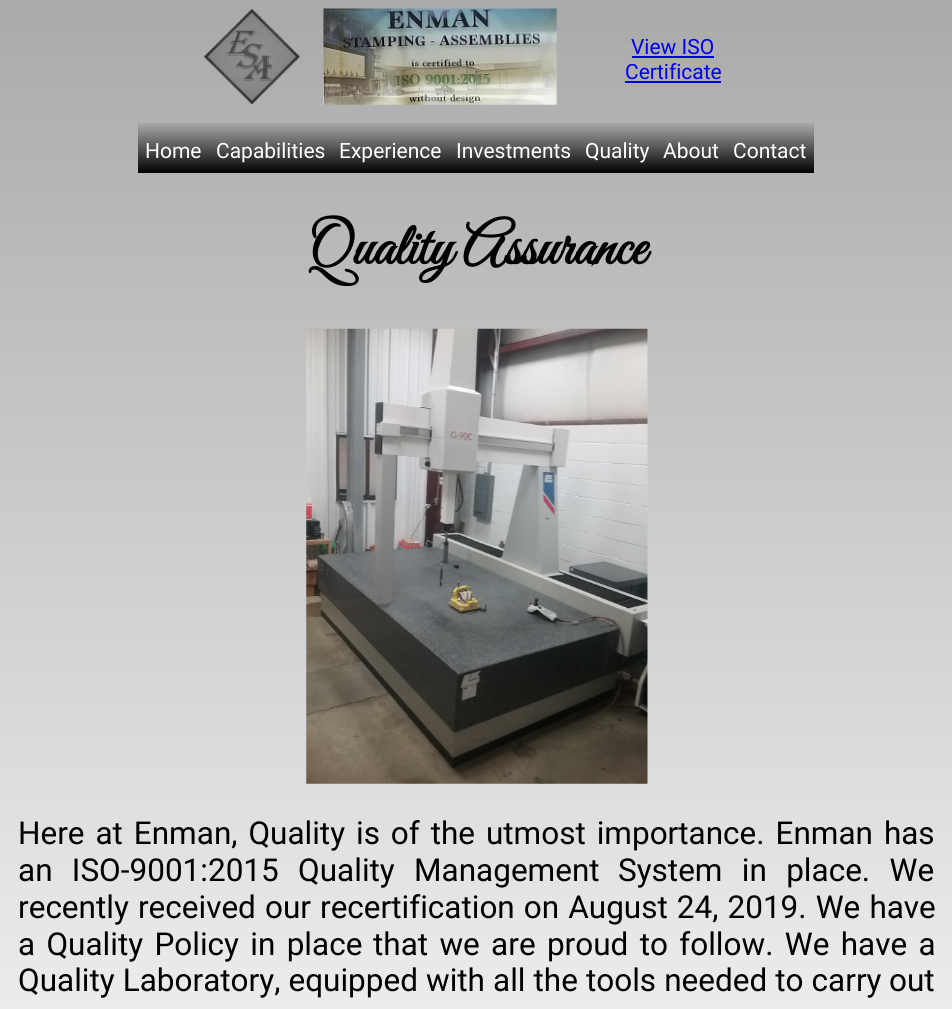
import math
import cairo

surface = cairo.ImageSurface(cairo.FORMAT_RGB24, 952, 1009)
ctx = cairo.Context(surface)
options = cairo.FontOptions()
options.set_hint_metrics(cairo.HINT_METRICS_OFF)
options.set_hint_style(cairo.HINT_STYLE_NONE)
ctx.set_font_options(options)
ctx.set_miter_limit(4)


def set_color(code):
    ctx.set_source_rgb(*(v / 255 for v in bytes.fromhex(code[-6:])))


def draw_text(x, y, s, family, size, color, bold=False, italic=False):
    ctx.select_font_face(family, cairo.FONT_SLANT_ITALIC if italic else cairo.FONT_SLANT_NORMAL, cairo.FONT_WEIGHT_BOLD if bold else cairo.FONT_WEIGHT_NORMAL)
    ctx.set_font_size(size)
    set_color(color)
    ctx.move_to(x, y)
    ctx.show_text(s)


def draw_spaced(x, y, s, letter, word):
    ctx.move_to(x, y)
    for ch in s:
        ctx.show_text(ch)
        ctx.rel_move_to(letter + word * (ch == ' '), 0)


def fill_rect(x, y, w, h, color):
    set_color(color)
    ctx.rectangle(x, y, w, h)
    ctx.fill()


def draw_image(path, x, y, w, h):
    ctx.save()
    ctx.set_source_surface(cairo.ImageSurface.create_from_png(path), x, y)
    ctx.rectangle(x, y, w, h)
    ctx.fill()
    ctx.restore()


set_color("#ffffff")
ctx.paint()
gradient = cairo.LinearGradient(476, -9, 476, 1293)
gradient.add_color_stop_rgba(0, 0.663, 0.663, 0.663, 1)
gradient.add_color_stop_rgba(1, 1, 1, 1, 1)
ctx.set_source(gradient)
ctx.rectangle(0, 0, 952, 1009)
ctx.fill()
draw_image("assets/img1.png", 204, 8, 354, 97)
draw_text(631, 54, "View ISO", "Roboto", 21, "#0000ee")
fill_rect(632, 56, 82, 2, "#0000ee")
draw_text(625, 79, "Certificate", "Roboto", 21, "#0000ee")
fill_rect(625, 81, 96, 2, "#0000ee")
gradient = cairo.LinearGradient(173, 123, 173, 173)
gradient.add_color_stop_rgba(0, 0.663, 0.663, 0.663, 1)
gradient.add_color_stop_rgba(1, 0, 0, 0, 1)
ctx.set_source(gradient)
ctx.rectangle(138, 123, 70, 50)
ctx.fill()
draw_text(145, 158, "Home", "Roboto", 21, "#ffffff")
gradient = cairo.LinearGradient(270, 123, 270, 173)
gradient.add_color_stop_rgba(0, 0.663, 0.663, 0.663, 1)
gradient.add_color_stop_rgba(1, 0, 0, 0, 1)
ctx.set_source(gradient)
ctx.rectangle(208, 123, 125, 50)
ctx.fill()
draw_text(216, 158, "Capabilities", "Roboto", 21, "#ffffff")
gradient = cairo.LinearGradient(390, 123, 390, 173)
gradient.add_color_stop_rgba(0, 0.663, 0.663, 0.663, 1)
gradient.add_color_stop_rgba(1, 0, 0, 0, 1)
ctx.set_source(gradient)
ctx.rectangle(333, 123, 115, 50)
ctx.fill()
draw_text(339, 158, "Experience", "Roboto", 21, "#ffffff")
gradient = cairo.LinearGradient(513, 123, 513, 173)
gradient.add_color_stop_rgba(0, 0.663, 0.663, 0.663, 1)
gradient.add_color_stop_rgba(1, 0, 0, 0, 1)
ctx.set_source(gradient)
ctx.rectangle(448, 123, 130, 50)
ctx.fill()
draw_text(456, 158, "Investments", "Roboto", 21, "#ffffff")
gradient = cairo.LinearGradient(617, 123, 617, 173)
gradient.add_color_stop_rgba(0, 0.663, 0.663, 0.663, 1)
gradient.add_color_stop_rgba(1, 0, 0, 0, 1)
ctx.set_source(gradient)
ctx.rectangle(578, 123, 78, 50)
ctx.fill()
draw_text(585, 158, "Quality", "Roboto", 21, "#ffffff")
gradient = cairo.LinearGradient(691, 123, 691, 173)
gradient.add_color_stop_rgba(0, 0.663, 0.663, 0.663, 1)
gradient.add_color_stop_rgba(1, 0, 0, 0, 1)
ctx.set_source(gradient)
ctx.rectangle(656, 123, 70, 50)
ctx.fill()
draw_text(663, 158, "About", "Roboto", 21, "#ffffff")
gradient = cairo.LinearGradient(770, 123, 770, 173)
gradient.add_color_stop_rgba(0, 0.663, 0.663, 0.663, 1)
gradient.add_color_stop_rgba(1, 0, 0, 0, 1)
ctx.set_source(gradient)
ctx.rectangle(726, 123, 88, 50)
ctx.fill()
draw_text(733, 158, "Contact", "Roboto", 21, "#ffffff")
draw_text(307, 264, "Quality Assurance", "Great Vibes", 59.5, "#000000", bold=True)
draw_image("assets/img2.png", 306, 328, 342, 456)
ctx.select_font_face("Roboto")
ctx.set_font_size(31.5)
draw_spaced(18, 844, "Here at Enman, Quality is of the utmost importance. Enman has", 0, 3.1)
draw_spaced(18, 881, "an ISO-9001:2015 Quality Management", 0, 11.5)
draw_spaced(618, 881, "System in place. We", 0, 11.5)
draw_spaced(18, 918, "recently received our recertification on August 24, 2019. We have", 0, 1.25)
draw_spaced(18, 955, "a Quality Policy in place", 0, 3.5)
draw_spaced(373, 955, "that we are proud to follow. We have a", 0, 3.5)
draw_spaced(18, 991, "Quality Laboratory, equipped with all the tools needed to carry", 0, 0.25)
draw_text(889, 991, "out", "Roboto", 31.5, "#000000")
surface.write_to_png("output.png")
